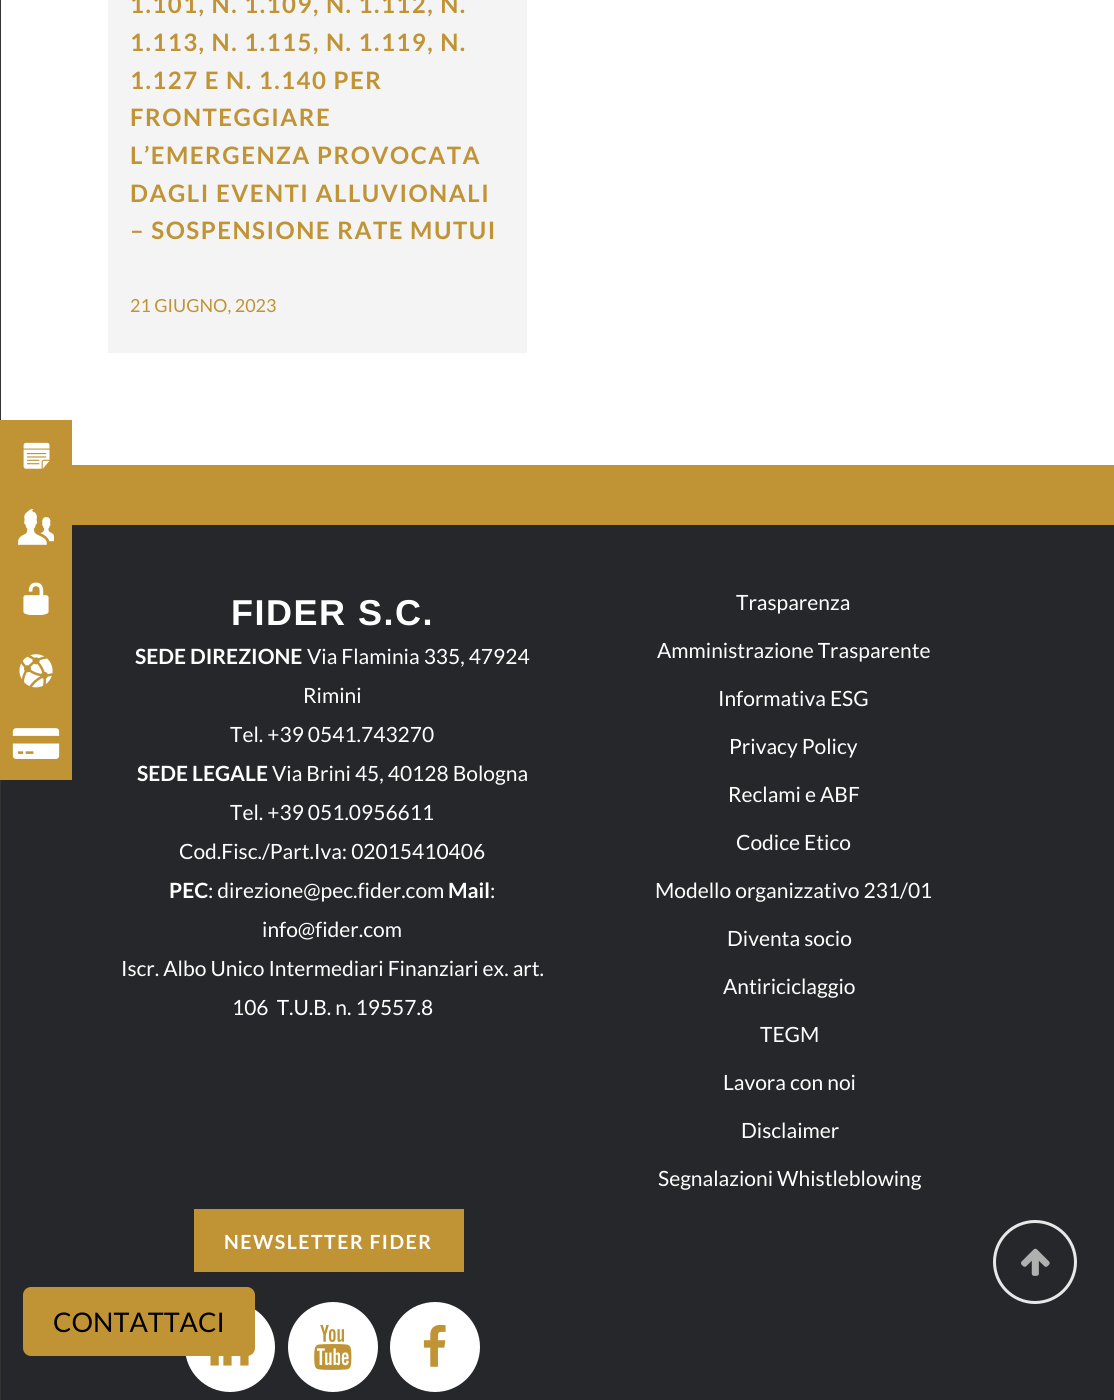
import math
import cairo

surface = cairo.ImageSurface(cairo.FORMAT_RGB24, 1114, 1400)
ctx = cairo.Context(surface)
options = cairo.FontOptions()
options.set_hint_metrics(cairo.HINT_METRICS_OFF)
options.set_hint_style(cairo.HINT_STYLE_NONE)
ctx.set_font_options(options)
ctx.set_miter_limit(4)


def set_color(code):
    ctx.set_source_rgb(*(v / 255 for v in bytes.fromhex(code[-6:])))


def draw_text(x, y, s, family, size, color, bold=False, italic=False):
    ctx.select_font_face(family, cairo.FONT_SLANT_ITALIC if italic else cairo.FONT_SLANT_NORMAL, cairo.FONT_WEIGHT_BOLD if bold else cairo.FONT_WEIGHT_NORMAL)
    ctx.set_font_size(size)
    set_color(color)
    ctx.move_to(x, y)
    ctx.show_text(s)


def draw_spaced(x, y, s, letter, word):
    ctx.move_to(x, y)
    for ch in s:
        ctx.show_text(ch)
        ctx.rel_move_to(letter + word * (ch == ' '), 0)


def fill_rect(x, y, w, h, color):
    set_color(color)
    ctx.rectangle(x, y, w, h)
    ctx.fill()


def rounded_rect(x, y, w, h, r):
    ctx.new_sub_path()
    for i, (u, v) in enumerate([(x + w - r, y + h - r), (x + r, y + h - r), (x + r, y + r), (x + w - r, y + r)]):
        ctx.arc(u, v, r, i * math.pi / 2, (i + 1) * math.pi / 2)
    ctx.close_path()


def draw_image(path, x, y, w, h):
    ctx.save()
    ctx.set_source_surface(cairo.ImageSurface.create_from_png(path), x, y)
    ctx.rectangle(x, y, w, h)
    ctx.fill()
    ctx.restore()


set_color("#c09335")
ctx.paint()
fill_rect(0, 0, 1, 1400, "#333333")
fill_rect(1, 0, 1113, 465, "#ffffff")
fill_rect(108, 0, 419, 353, "#f4f4f4")
ctx.select_font_face("Lato", cairo.FONT_SLANT_NORMAL, cairo.FONT_WEIGHT_BOLD)
ctx.set_font_size(24)
set_color("#c09335")
draw_spaced(130, 13, "1.101, N. 1.109, N. 1.112, N.", 1.5, 0)
draw_spaced(130, 51, "1.113, N. 1.115, N. 1.119, N.", 1.5, 0)
draw_spaced(130, 89, "1.127 E N. 1.140 PER", 1.5, 0)
draw_spaced(130, 126, "FRONTEGGIARE", 1.5, 0)
draw_spaced(130, 164, "L’EMERGENZA PROVOCATA", 1.5, 0)
draw_spaced(130, 202, "DAGLI EVENTI ALLUVIONALI", 1.5, 0)
draw_spaced(130, 239, "– SOSPENSIONE RATE MUTUI", 1.5, 0)
draw_text(130, 312, "21 GIUGNO, 2023", "Lato", 18, "#c09335")
fill_rect(1, 525, 1113, 875, "#25272a")
ctx.select_font_face("Liberation Sans", cairo.FONT_SLANT_NORMAL, cairo.FONT_WEIGHT_BOLD)
ctx.set_font_size(36)
set_color("#ffffff")
draw_spaced(231, 625, "FIDER S.C.", 1.5, 0)
draw_text(135, 664, "SEDE DIREZIONE", "Lato", 21, "#ffffff", bold=True)
draw_text(307, 664, "Via Flaminia 335, 47924", "Lato", 21, "#ffffff")
draw_text(303, 703, "Rimini", "Lato", 21, "#ffffff")
draw_text(230, 742, "Tel. +39 0541.743270", "Lato", 21, "#ffffff")
draw_text(137, 781, "SEDE LEGALE", "Lato", 21, "#ffffff", bold=True)
draw_text(272, 781, "Via Brini 45, 40128 Bologna", "Lato", 21, "#ffffff")
draw_text(230, 820, "Tel. +39 051.0956611", "Lato", 21, "#ffffff")
draw_text(179, 859, "Cod.Fisc./Part.Iva: 02015410406", "Lato", 21, "#ffffff")
draw_text(169, 898, "PEC", "Lato", 21, "#ffffff", bold=True)
draw_text(208, 898, ": direzione@pec.fider.com", "Lato", 21, "#ffffff")
draw_text(448, 898, "Mail", "Lato", 21, "#ffffff", bold=True)
draw_text(490, 898, ":", "Lato", 21, "#ffffff")
draw_text(262, 937, "info@fider.com", "Lato", 21, "#ffffff")
draw_text(121, 976, "Iscr. Albo Unico Intermediari Finanziari ex. art.", "Lato", 21, "#ffffff")
draw_text(232, 1015, "106  T.U.B. n. 19557.8", "Lato", 21, "#ffffff")
draw_text(736, 610, "Trasparenza", "Lato", 21, "#ffffff")
draw_text(657, 658, "Amministrazione Trasparente", "Lato", 21, "#ffffff")
draw_text(718, 706, "Informativa ESG", "Lato", 21, "#ffffff")
draw_text(729, 754, "Privacy Policy", "Lato", 21, "#ffffff")
draw_text(728, 802, "Reclami e ABF", "Lato", 21, "#ffffff")
draw_text(736, 850, "Codice Etico", "Lato", 21, "#ffffff")
draw_text(655, 898, "Modello organizzativo 231/01", "Lato", 21, "#ffffff")
draw_text(727, 946, "Diventa socio", "Lato", 21, "#ffffff")
draw_text(723, 994, "Antiriciclaggio", "Lato", 21, "#ffffff")
draw_text(760, 1042, "TEGM", "Lato", 21, "#ffffff")
draw_text(723, 1090, "Lavora con noi", "Lato", 21, "#ffffff")
draw_text(741, 1138, "Disclaimer", "Lato", 21, "#ffffff")
draw_text(658, 1186, "Segnalazioni Whistleblowing", "Lato", 21, "#ffffff")
fill_rect(194, 1209, 270, 63, "#c09335")
ctx.select_font_face("Lato", cairo.FONT_SLANT_NORMAL, cairo.FONT_WEIGHT_BOLD)
ctx.set_font_size(19.5)
set_color("#ffffff")
draw_spaced(224, 1249, "NEWSLETTER FIDER", 1.5, 0)
ctx.new_path()
ctx.arc(230, 1347, 45, 0, 2 * math.pi)
ctx.fill()
draw_image("assets/img1.png", 210, 1355, 39, 11)
ctx.arc(333, 1347, 45, 0, 2 * math.pi)
ctx.fill()
draw_image("assets/img2.png", 314, 1324, 38, 46)
ctx.arc(435, 1347, 45, 0, 2 * math.pi)
ctx.fill()
draw_image("assets/img3.png", 423, 1324, 23, 43)
ctx.arc(1035, 1262, 40.5, 0, 2 * math.pi)
set_color("#e8e8e8")
ctx.set_line_width(3)
ctx.stroke()
draw_image("assets/img4.png", 1021, 1248, 29, 28)
fill_rect(0, 420, 72, 360, "#c09335")
draw_image("assets/img5.png", 23, 442, 27, 27)
draw_image("assets/img6.png", 18, 509, 36, 36)
draw_image("assets/img7.png", 23, 582, 26, 33)
draw_image("assets/img8.png", 19, 654, 34, 34)
draw_image("assets/img9.png", 12, 728, 48, 31)
rounded_rect(23, 1287, 232, 69, 8)
ctx.fill()
draw_text(53, 1332, "CONTATTACI", "Lato", 27, "#000000")
surface.write_to_png("output.png")
